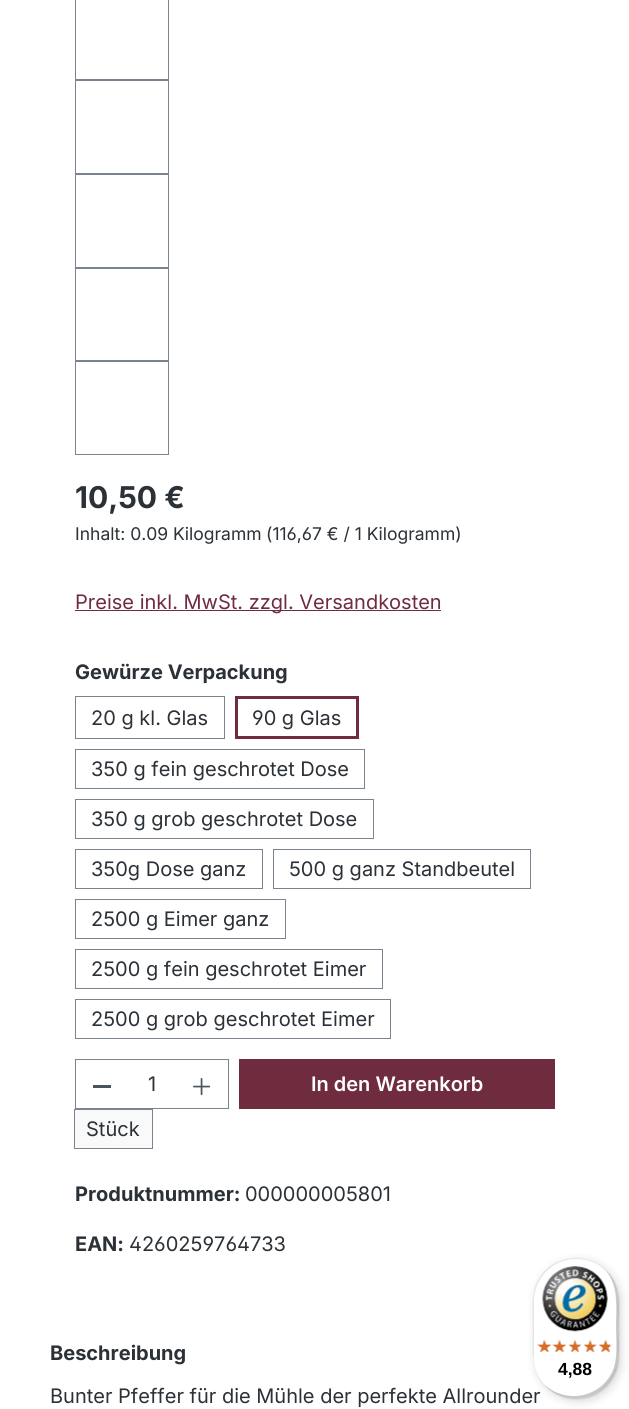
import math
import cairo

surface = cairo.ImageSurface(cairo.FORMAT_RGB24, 629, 1409)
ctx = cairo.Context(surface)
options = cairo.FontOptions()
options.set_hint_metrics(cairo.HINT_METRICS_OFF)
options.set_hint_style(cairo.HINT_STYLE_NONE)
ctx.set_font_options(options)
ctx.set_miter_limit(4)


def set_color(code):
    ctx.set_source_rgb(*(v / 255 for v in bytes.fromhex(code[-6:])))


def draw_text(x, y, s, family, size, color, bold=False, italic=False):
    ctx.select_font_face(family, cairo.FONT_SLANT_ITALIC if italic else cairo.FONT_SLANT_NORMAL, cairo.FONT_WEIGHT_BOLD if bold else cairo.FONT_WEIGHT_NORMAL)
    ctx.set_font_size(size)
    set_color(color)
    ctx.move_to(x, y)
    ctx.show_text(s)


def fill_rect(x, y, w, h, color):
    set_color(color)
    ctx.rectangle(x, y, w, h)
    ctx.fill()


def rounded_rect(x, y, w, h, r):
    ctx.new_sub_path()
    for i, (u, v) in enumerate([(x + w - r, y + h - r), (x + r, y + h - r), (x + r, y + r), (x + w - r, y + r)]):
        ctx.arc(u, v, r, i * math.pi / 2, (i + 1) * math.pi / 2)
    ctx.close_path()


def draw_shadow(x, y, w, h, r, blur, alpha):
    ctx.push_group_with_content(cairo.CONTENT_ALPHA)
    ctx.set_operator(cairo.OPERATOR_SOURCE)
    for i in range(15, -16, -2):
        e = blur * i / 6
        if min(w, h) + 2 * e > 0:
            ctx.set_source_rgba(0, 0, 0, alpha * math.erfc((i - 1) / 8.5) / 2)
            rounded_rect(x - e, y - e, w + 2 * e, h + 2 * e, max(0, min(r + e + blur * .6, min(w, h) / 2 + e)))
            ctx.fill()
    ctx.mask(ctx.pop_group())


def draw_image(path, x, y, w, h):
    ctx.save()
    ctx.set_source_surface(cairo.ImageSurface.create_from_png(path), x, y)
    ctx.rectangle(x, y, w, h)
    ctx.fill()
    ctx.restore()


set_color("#ffffff")
ctx.paint()
ctx.rectangle(75.5, -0.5, 93, 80)
set_color("#798490")
ctx.set_line_width(1)
ctx.stroke()
ctx.rectangle(75.5, 80.5, 93, 93)
ctx.stroke()
ctx.rectangle(75.5, 174.5, 93, 93)
ctx.stroke()
ctx.rectangle(75.5, 268.5, 93, 92)
ctx.stroke()
ctx.rectangle(75.5, 361.5, 93, 93)
ctx.stroke()
draw_text(75, 508, "10,50 €", "Inter", 30, "#2b3136", bold=True)
draw_text(75, 540, "Inhalt: 0.09 Kilogramm", "Inter", 17.5, "#2b3136")
draw_text(266, 540, "(116,67 € / 1 Kilogramm)", "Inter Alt", 17.5, "#2b3136")
fill_rect(75, 610, 366, 1, "#6f2c3f")
draw_text(75, 609, "Preise inkl. MwSt. zzgl. Versandkosten", "Inter", 20, "#6f2c3f")
draw_text(75, 679, "Gewürze Verpackung", "Inter", 20, "#2b3136", bold=True)
ctx.rectangle(75.5, 696.5, 149, 42)
set_color("#798490")
ctx.stroke()
draw_text(91, 725, "20 g kl. Glas", "Inter", 20, "#2b3136")
ctx.rectangle(236.5, 697.5, 121, 40)
set_color("#6f2c3f")
ctx.set_line_width(3)
ctx.stroke()
draw_text(252, 725, "90 g Glas", "Inter Alt", 20, "#2b3136")
ctx.rectangle(75.5, 749.5, 289, 39)
set_color("#798490")
ctx.set_line_width(1)
ctx.stroke()
draw_text(91, 776, "350 g fein geschrotet Dose", "Inter", 20, "#2b3136")
ctx.rectangle(75.5, 799.5, 298, 39)
set_color("#798490")
ctx.stroke()
draw_text(91, 826, "350 g grob geschrotet Dose", "Inter", 20, "#2b3136")
ctx.rectangle(75.5, 849.5, 187, 39)
set_color("#798490")
ctx.stroke()
draw_text(91, 876, "350g Dose ganz", "Inter", 20, "#2b3136")
ctx.rectangle(273.5, 849.5, 257, 39)
set_color("#798490")
ctx.stroke()
draw_text(289, 876, "500 g ganz Standbeutel", "Inter", 20, "#2b3136")
ctx.rectangle(75.5, 899.5, 210, 39)
set_color("#798490")
ctx.stroke()
draw_text(91, 926, "2500 g Eimer ganz", "Inter", 20, "#2b3136")
ctx.rectangle(75.5, 949.5, 307, 39)
set_color("#798490")
ctx.stroke()
draw_text(91, 976, "2500 g fein geschrotet Eimer", "Inter", 20, "#2b3136")
ctx.rectangle(75.5, 999.5, 315, 39)
set_color("#798490")
ctx.stroke()
draw_text(91, 1026, "2500 g grob geschrotet Eimer", "Inter", 20, "#2b3136")
fill_rect(75, 1059, 154, 1, "#798490")
fill_rect(75, 1108, 103, 1, "#798490")
fill_rect(75, 1059, 1, 50, "#798490")
fill_rect(93, 1085, 18, 3, "#4a545b")
draw_text(148, 1091, "1", "Inter", 20, "#2b3136")
fill_rect(228, 1059, 1, 50, "#798490")
fill_rect(176, 1108, 53, 1, "#798490")
draw_image("assets/img1.png", 193, 1078, 18, 18)
set_color("#f9f9f9")
ctx.rectangle(74.5, 1109.5, 78, 39)
ctx.fill_preserve()
set_color("#798490")
ctx.stroke()
draw_text(86, 1136, "Stück", "Inter", 20, "#2b3136")
fill_rect(239, 1059, 316, 50, "#6f2c3f")
draw_text(311, 1091, "In den Warenkorb", "Inter SemiBold", 20, "#ffffff")
draw_text(75, 1201, "Produktnummer:", "Inter", 20, "#2b3136", bold=True)
draw_text(245, 1201, "000000005801", "Inter", 20, "#2b3136")
draw_text(75, 1251, "EAN:", "Inter", 20, "#2b3136", bold=True)
draw_text(129, 1251, "4260259764733", "Inter Alt", 20, "#2b3136")
draw_text(50, 1360, "Beschreibung", "Inter", 20, "#2b3136", bold=True)
draw_text(50, 1403, "Bunter Pfeffer für die Mühle der perfekte Allrounder", "Inter", 20, "#2b3136")
set_color("#000000")
draw_shadow(536, 1261, 85, 140, 42.5, 5, 0.15)
draw_shadow(534, 1259, 85, 140, 42.5, 1, 0.15)
set_color("#ffffff")
rounded_rect(533, 1258, 85, 140, 42.5)
ctx.fill()
set_color("#e5e5e5")
ctx.new_path()
ctx.move_to(576, 1259)
ctx.curve_to(588, 1259, 598, 1263, 606, 1271)
ctx.curve_to(585, 1249, 548, 1256, 536, 1284)
ctx.curve_to(531, 1296, 533, 1314, 533, 1328)
ctx.curve_to(533, 1349, 530, 1370, 546, 1386)
ctx.curve_to(538, 1378, 534, 1368, 534, 1356)
ctx.line_to(534, 1301)
ctx.curve_to(534, 1278, 553, 1259, 576, 1259)
ctx.close_path()
ctx.fill()
ctx.set_source_rgba(0, 0, 0, 0.2)
ctx.new_path()
ctx.move_to(545, 1385)
ctx.curve_to(565, 1407, 603, 1400, 615, 1372)
ctx.curve_to(620, 1360, 618, 1342, 618, 1328)
ctx.curve_to(618, 1307, 622, 1285, 605, 1270)
ctx.curve_to(619, 1285, 616, 1307, 616, 1326)
ctx.curve_to(616, 1340, 618, 1358, 613, 1370)
ctx.curve_to(601, 1398, 566, 1404, 545, 1385)
ctx.close_path()
ctx.fill()
ctx.set_source_rgba(0.196, 0.196, 0.196, 0.2)
ctx.new_path()
ctx.move_to(545, 1386)
ctx.curve_to(566, 1406, 603, 1400, 615, 1372)
ctx.curve_to(620, 1360, 618, 1342, 618, 1328)
ctx.curve_to(618, 1307, 621, 1286, 606, 1270)
ctx.curve_to(613, 1278, 617, 1288, 617, 1299)
ctx.line_to(617, 1354)
ctx.curve_to(617, 1378, 598, 1397, 574, 1397)
ctx.curve_to(563, 1397, 553, 1393, 545, 1386)
ctx.close_path()
ctx.fill()
ctx.set_source_rgba(1, 1, 1, 0.3)
ctx.new_path()
ctx.move_to(545, 1386)
ctx.curve_to(566, 1406, 603, 1400, 615, 1372)
ctx.curve_to(620, 1360, 618, 1342, 618, 1328)
ctx.curve_to(618, 1307, 621, 1286, 606, 1270)
ctx.curve_to(613, 1278, 617, 1288, 617, 1299)
ctx.line_to(617, 1354)
ctx.curve_to(617, 1378, 598, 1397, 574, 1397)
ctx.curve_to(563, 1397, 553, 1393, 545, 1386)
ctx.close_path()
ctx.fill()
draw_image("assets/img2.png", 542, 1266, 66, 66)
draw_image("assets/img3.png", 537, 1340, 14, 13)
draw_image("assets/img4.png", 554, 1340, 12, 12)
draw_image("assets/img5.png", 569, 1340, 12, 13)
draw_image("assets/img6.png", 584, 1340, 14, 12)
draw_image("assets/img7.png", 599, 1340, 14, 13)
draw_image("assets/img8.png", 537, 1340, 15, 12)
draw_image("assets/img9.png", 552, 1340, 15, 12)
draw_image("assets/img10.png", 568, 1340, 14, 12)
draw_image("assets/img11.png", 583, 1340, 14, 12)
draw_image("assets/img12.png", 598, 1340, 12, 12)
draw_text(558, 1375, "4,88", "Liberation Sans", 17.5, "#000000", bold=True)
surface.write_to_png("output.png")
